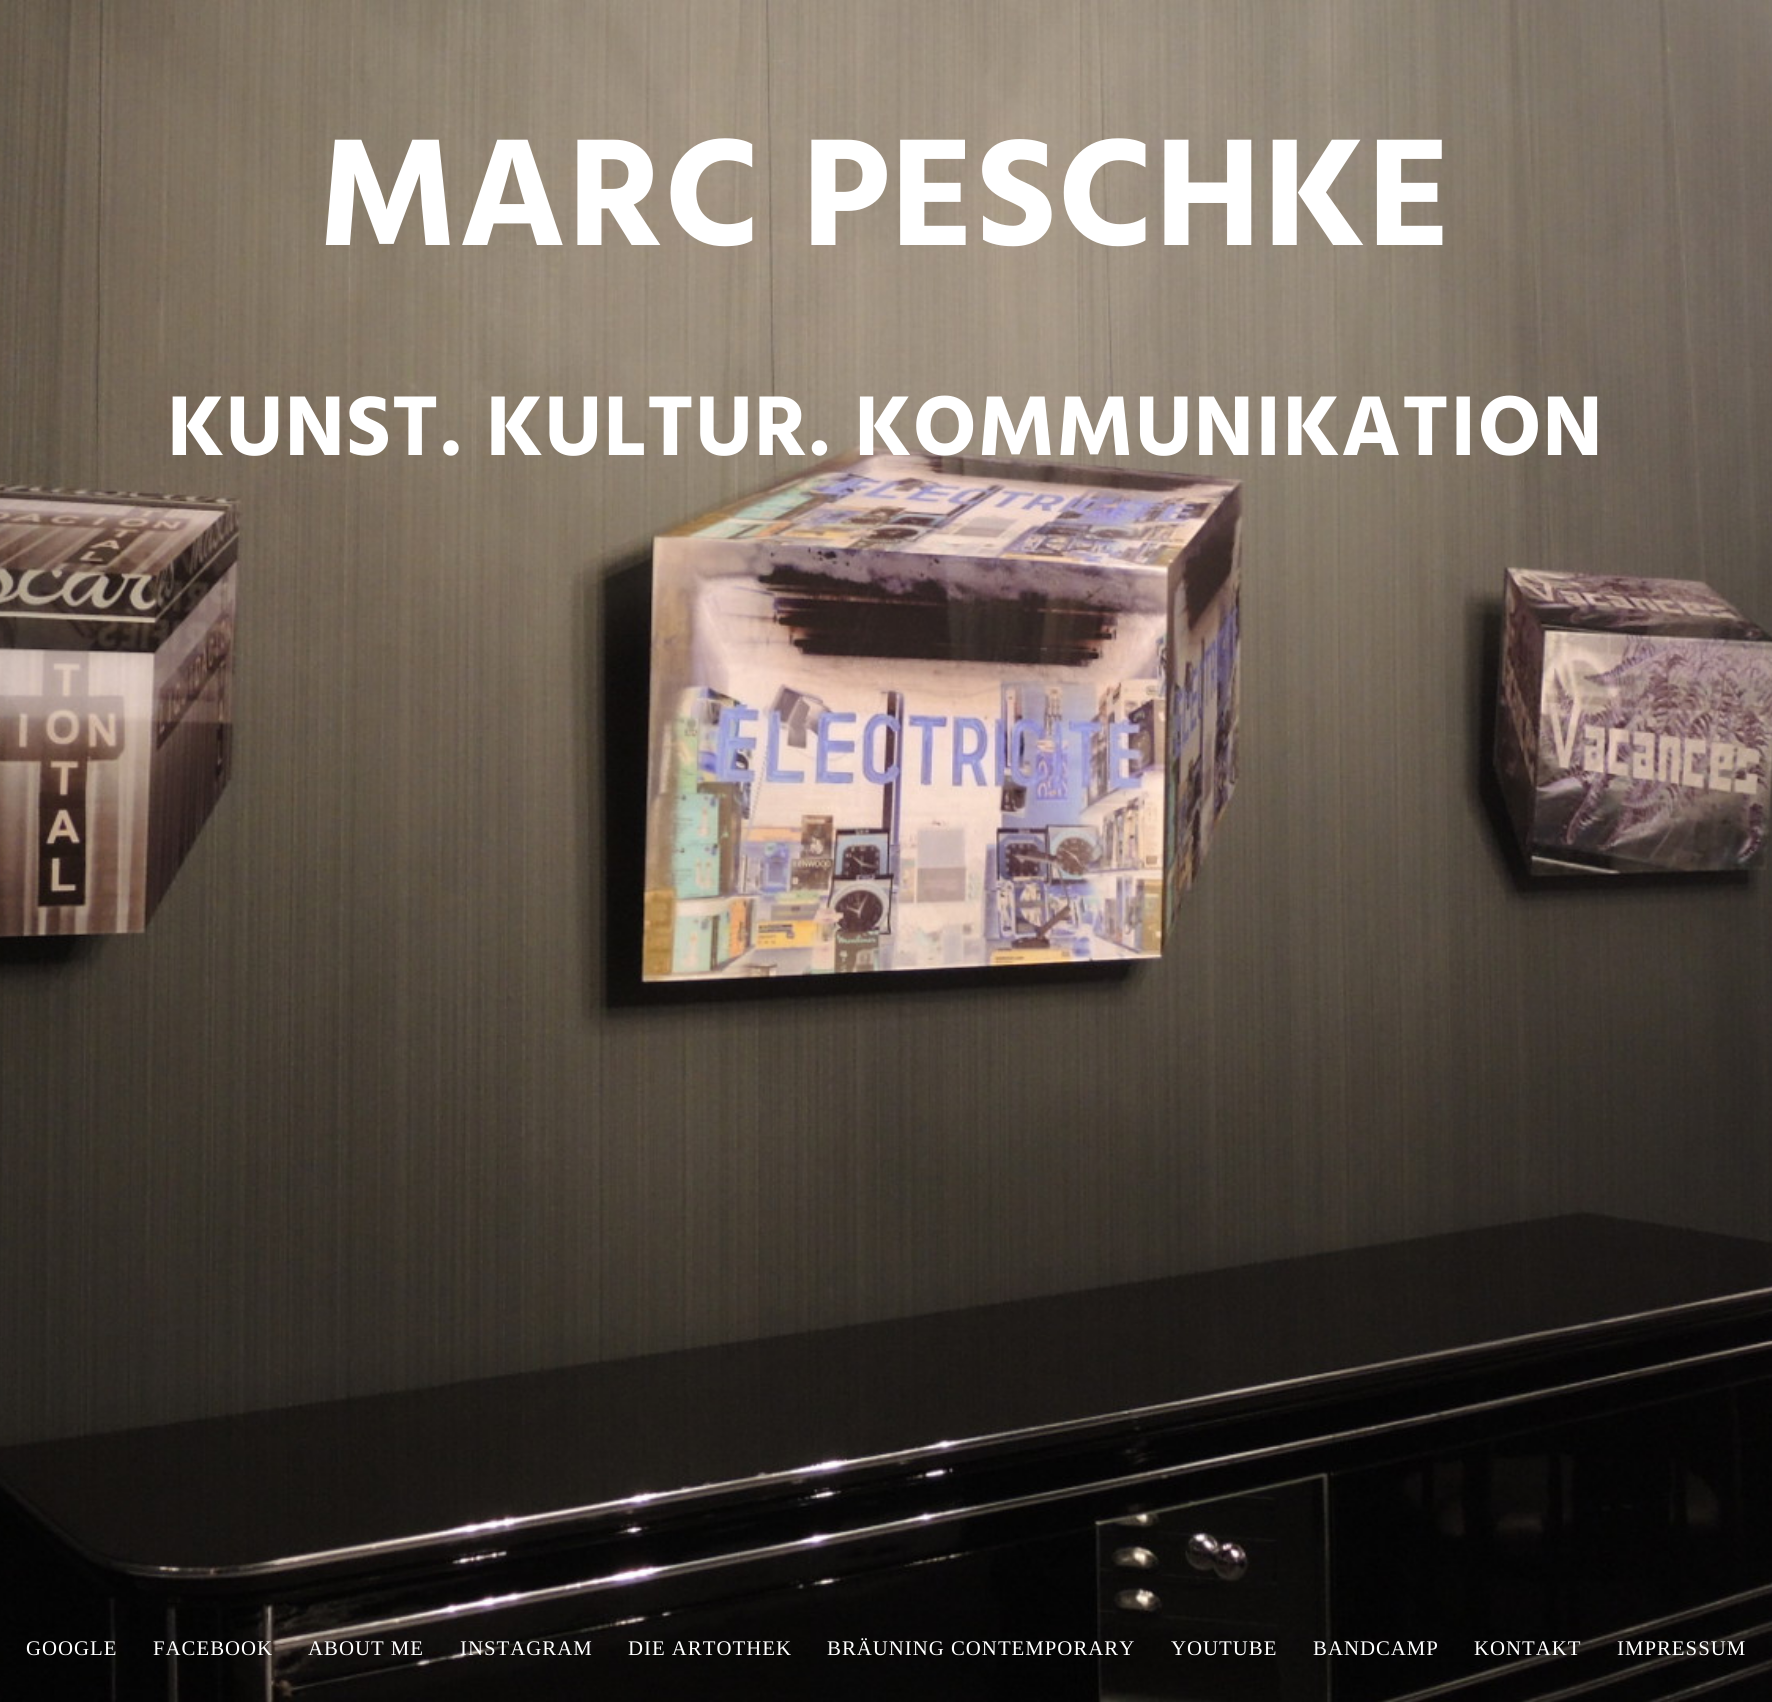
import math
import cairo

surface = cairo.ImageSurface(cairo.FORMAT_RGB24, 1772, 1702)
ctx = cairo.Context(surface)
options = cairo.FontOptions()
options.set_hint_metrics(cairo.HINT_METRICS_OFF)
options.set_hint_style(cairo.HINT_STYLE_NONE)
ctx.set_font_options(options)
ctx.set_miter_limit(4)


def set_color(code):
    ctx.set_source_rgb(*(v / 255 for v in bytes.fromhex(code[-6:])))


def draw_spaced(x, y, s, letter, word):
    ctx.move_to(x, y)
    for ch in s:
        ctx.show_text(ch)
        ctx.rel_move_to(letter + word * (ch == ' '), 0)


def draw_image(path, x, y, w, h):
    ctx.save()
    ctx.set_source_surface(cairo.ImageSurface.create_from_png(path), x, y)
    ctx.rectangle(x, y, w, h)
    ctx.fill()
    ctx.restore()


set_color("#ffffff")
ctx.paint()
draw_image("assets/img1.png", 0, 0, 1772, 1702)
ctx.select_font_face("Hind", cairo.FONT_SLANT_NORMAL, cairo.FONT_WEIGHT_BOLD)
ctx.set_font_size(156.25)
set_color("#ffffff")
draw_spaced(318, 245, "MARC PESCHKE", 1, 0)
ctx.set_font_size(86.8)
draw_spaced(167, 455, "KUNST. KULTUR. KOMMUNIKATION", 1, 0)
ctx.select_font_face("Liberation Serif")
ctx.set_font_size(20.8)
draw_spaced(26, 1655, "GOOGLE", 1, 0)
draw_spaced(153, 1655, "FACEBOOK", 1, 0)
draw_spaced(308, 1655, "ABOUT ME", 1, 0)
draw_spaced(460, 1655, "INSTAGRAM", 1, 0)
draw_spaced(628, 1655, "DIE ARTOTHEK", 1, 0)
draw_spaced(827, 1655, "BRÄUNING CONTEMPORARY", 1, 0)
draw_spaced(1171, 1655, "YOUTUBE", 1, 0)
draw_spaced(1313, 1655, "BANDCAMP", 1, 0)
draw_spaced(1474, 1655, "KONTAKT", 1, 0)
draw_spaced(1617, 1655, "IMPRESSUM", 1, 0)
surface.write_to_png("output.png")
